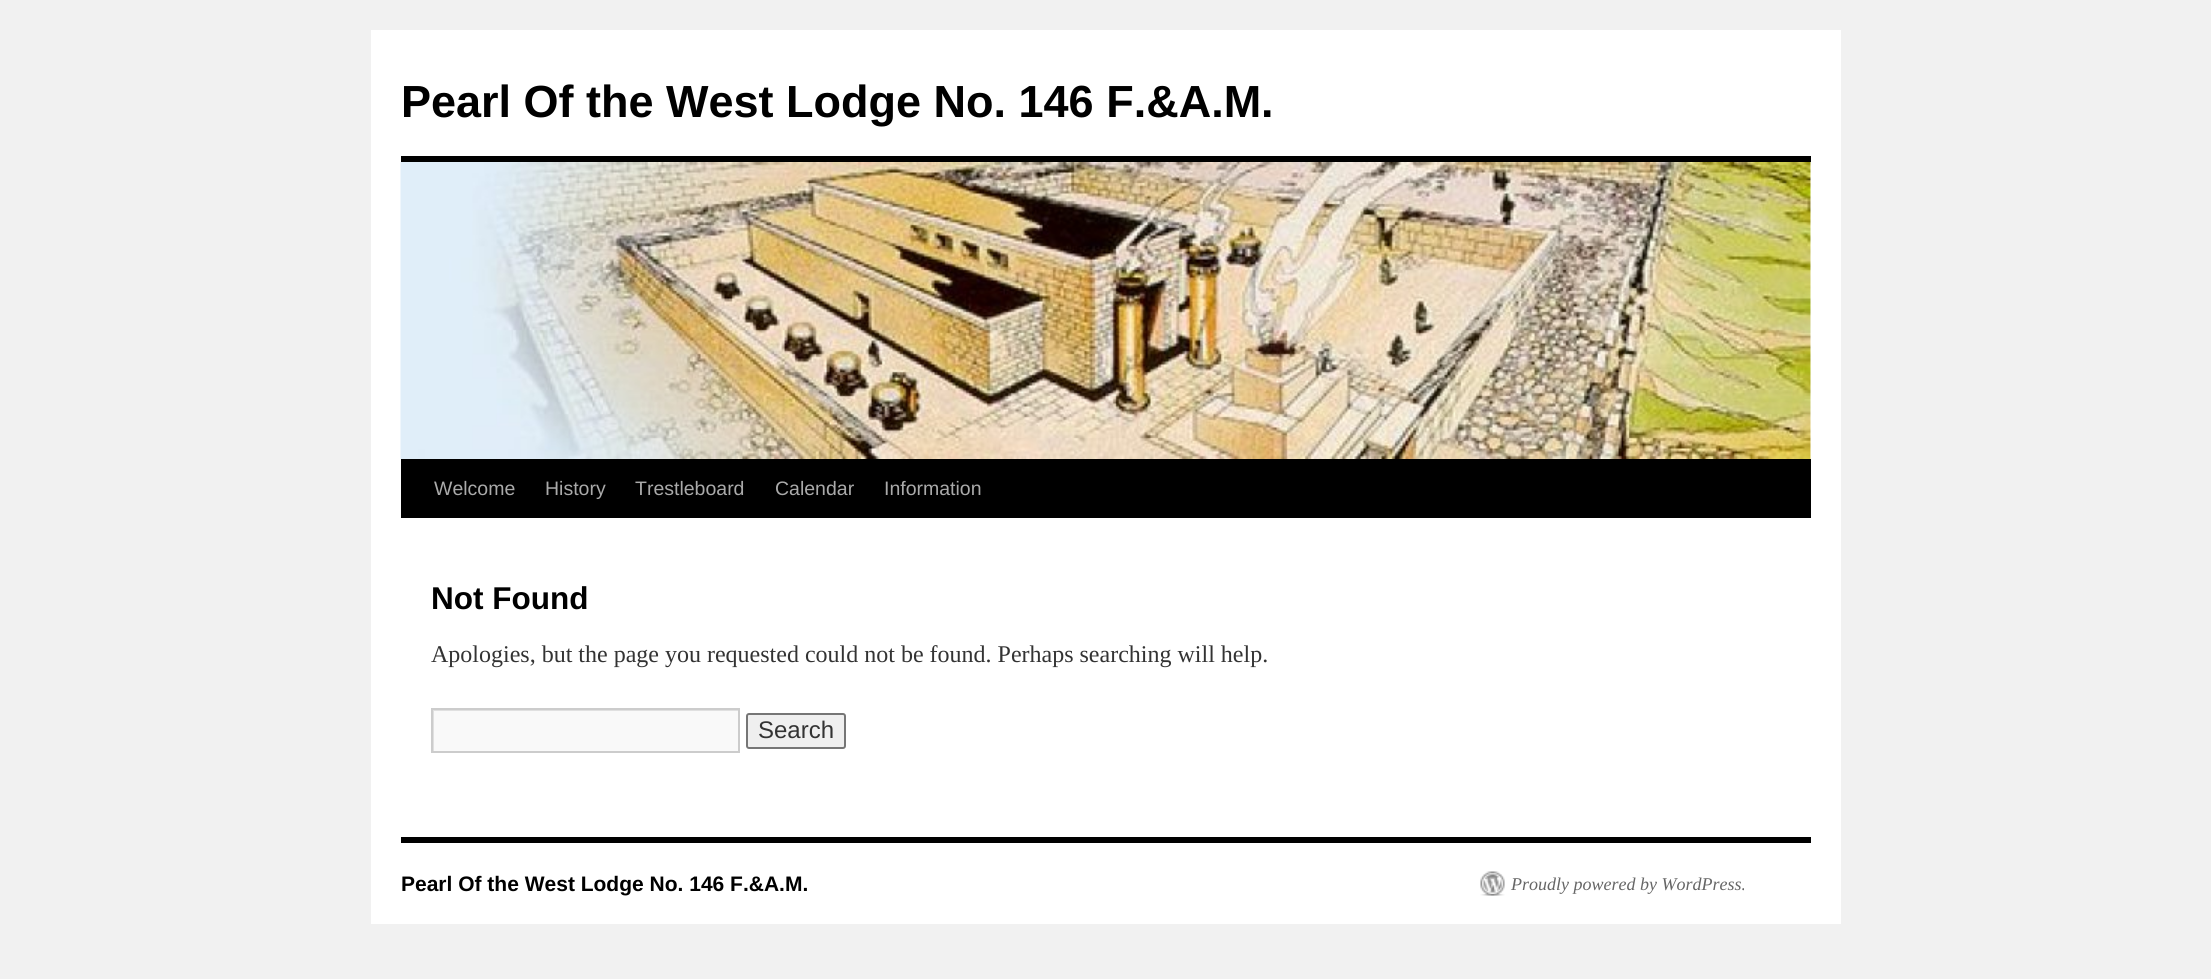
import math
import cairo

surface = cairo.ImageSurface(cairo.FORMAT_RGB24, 2211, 979)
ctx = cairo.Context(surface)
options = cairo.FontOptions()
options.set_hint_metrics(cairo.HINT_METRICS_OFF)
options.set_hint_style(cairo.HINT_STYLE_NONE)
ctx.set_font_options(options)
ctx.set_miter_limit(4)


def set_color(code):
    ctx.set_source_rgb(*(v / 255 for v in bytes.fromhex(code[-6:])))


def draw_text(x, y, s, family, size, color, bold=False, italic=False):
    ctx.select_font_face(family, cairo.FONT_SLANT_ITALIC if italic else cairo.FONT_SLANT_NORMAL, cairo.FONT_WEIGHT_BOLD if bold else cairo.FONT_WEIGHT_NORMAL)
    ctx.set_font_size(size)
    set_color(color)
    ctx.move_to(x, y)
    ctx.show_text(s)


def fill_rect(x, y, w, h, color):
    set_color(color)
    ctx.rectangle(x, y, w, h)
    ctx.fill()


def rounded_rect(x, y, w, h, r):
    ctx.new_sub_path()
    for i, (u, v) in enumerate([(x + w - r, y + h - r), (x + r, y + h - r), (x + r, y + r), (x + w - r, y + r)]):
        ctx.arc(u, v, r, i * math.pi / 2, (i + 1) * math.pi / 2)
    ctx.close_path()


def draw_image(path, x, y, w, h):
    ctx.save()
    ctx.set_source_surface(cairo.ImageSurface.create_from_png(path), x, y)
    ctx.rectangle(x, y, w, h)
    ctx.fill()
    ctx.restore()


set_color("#f1f1f1")
ctx.paint()
fill_rect(371, 30, 1470, 894, "#ffffff")
draw_text(401, 117, "Pearl Of the West Lodge No. 146 F.&A.M.", "Liberation Sans", 45, "#000000", bold=True)
fill_rect(401, 156, 1410, 6, "#000000")
fill_rect(401, 459, 1410, 59, "#000000")
draw_image("assets/img1.png", 400, 162, 1411, 297)
draw_text(434, 495, "Welcome", "Liberation Sans", 19.5, "#aaaaaa")
draw_text(545, 495, "History", "Liberation Sans", 19.5, "#aaaaaa")
draw_text(635, 495, "Trestleboard", "Liberation Sans", 19.5, "#aaaaaa")
draw_text(775, 495, "Calendar", "Liberation Sans", 19.5, "#aaaaaa")
draw_text(884, 495, "Information", "Liberation Sans", 19.5, "#aaaaaa")
draw_text(431, 609, "Not Found", "Liberation Sans", 31.5, "#000000", bold=True)
draw_text(431, 662, "Apologies, but the page you requested could not be found. Perhaps searching will help.", "Liberation Serif", 24, "#333333")
fill_rect(434, 711, 304, 40, "#f9f9f9")
ctx.save()
ctx.rectangle(432, 710, 306, 42)
ctx.clip()
set_color("#e0e0e0")
ctx.set_fill_rule(cairo.FILL_RULE_EVEN_ODD)
ctx.new_path()
ctx.move_to(284, 561)
ctx.line_to(886, 561)
ctx.line_to(886, 900)
ctx.line_to(284, 900)
ctx.close_path()
ctx.move_to(434, 711)
ctx.line_to(740, 711)
ctx.line_to(740, 753)
ctx.line_to(434, 753)
ctx.close_path()
ctx.fill()
ctx.restore()
ctx.rectangle(432, 709, 307, 43)
set_color("#cccccc")
ctx.stroke()
set_color("#efefef")
rounded_rect(747, 714, 98, 34, 2)
ctx.fill_preserve()
set_color("#767676")
ctx.stroke()
draw_text(758, 738, "Search", "Liberation Sans", 24, "#333333")
fill_rect(401, 837, 1410, 6, "#000000")
draw_text(401, 891, "Pearl Of the West Lodge No. 146 F.&A.M.", "Liberation Sans", 21, "#000000", bold=True)
draw_image("assets/img2.png", 1480, 871, 25, 25)
draw_text(1511, 890, "Proudly powered by WordPress.", "Liberation Serif", 18, "#666666", italic=True)
surface.write_to_png("output.png")
